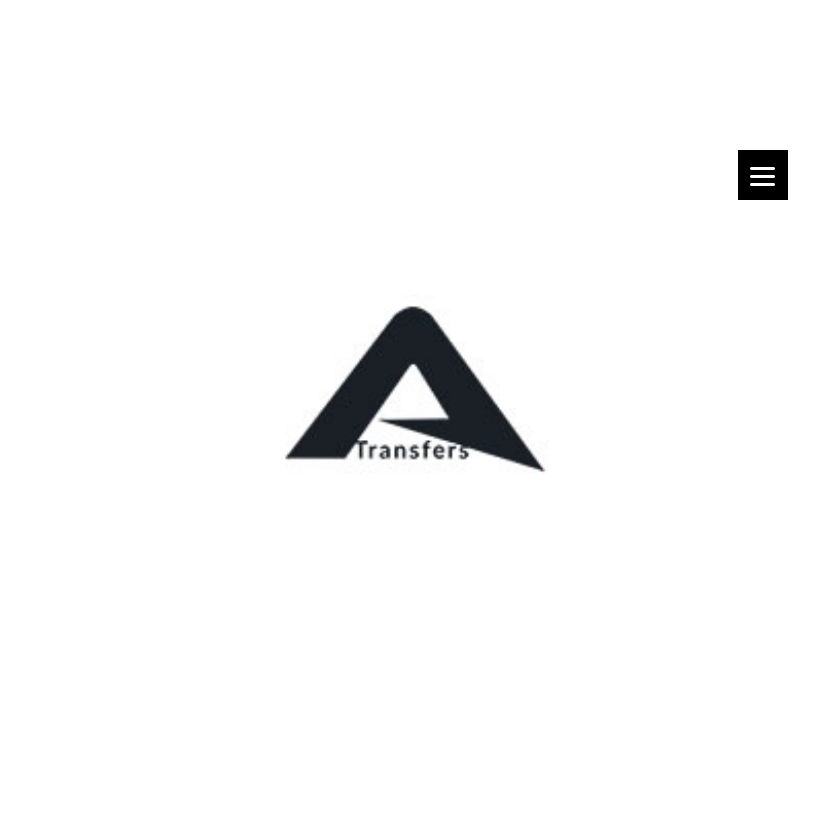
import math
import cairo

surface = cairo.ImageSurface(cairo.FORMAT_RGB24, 829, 814)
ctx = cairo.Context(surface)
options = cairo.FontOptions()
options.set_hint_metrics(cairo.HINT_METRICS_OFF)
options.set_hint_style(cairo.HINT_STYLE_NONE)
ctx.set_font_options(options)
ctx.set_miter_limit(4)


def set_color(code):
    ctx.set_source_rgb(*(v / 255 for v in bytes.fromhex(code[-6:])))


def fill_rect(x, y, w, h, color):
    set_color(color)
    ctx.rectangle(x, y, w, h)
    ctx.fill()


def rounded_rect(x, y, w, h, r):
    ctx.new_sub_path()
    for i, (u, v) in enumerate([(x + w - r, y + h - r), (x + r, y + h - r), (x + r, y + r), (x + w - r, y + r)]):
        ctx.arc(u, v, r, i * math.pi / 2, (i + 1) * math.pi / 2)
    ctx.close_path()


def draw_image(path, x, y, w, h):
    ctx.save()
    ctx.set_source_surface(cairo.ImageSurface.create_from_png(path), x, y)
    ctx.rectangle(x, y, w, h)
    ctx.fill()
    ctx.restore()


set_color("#ffffff")
ctx.paint()
fill_rect(738, 150, 50, 50, "#000000")
set_color("#ffffff")
rounded_rect(750, 175, 25, 3, 1.5)
ctx.fill()
rounded_rect(750, 167, 25, 3, 1.5)
ctx.fill()
rounded_rect(750, 183, 25, 3, 1.5)
ctx.fill()
draw_image("assets/img1.png", 285, 295, 264, 179)
surface.write_to_png("output.png")
